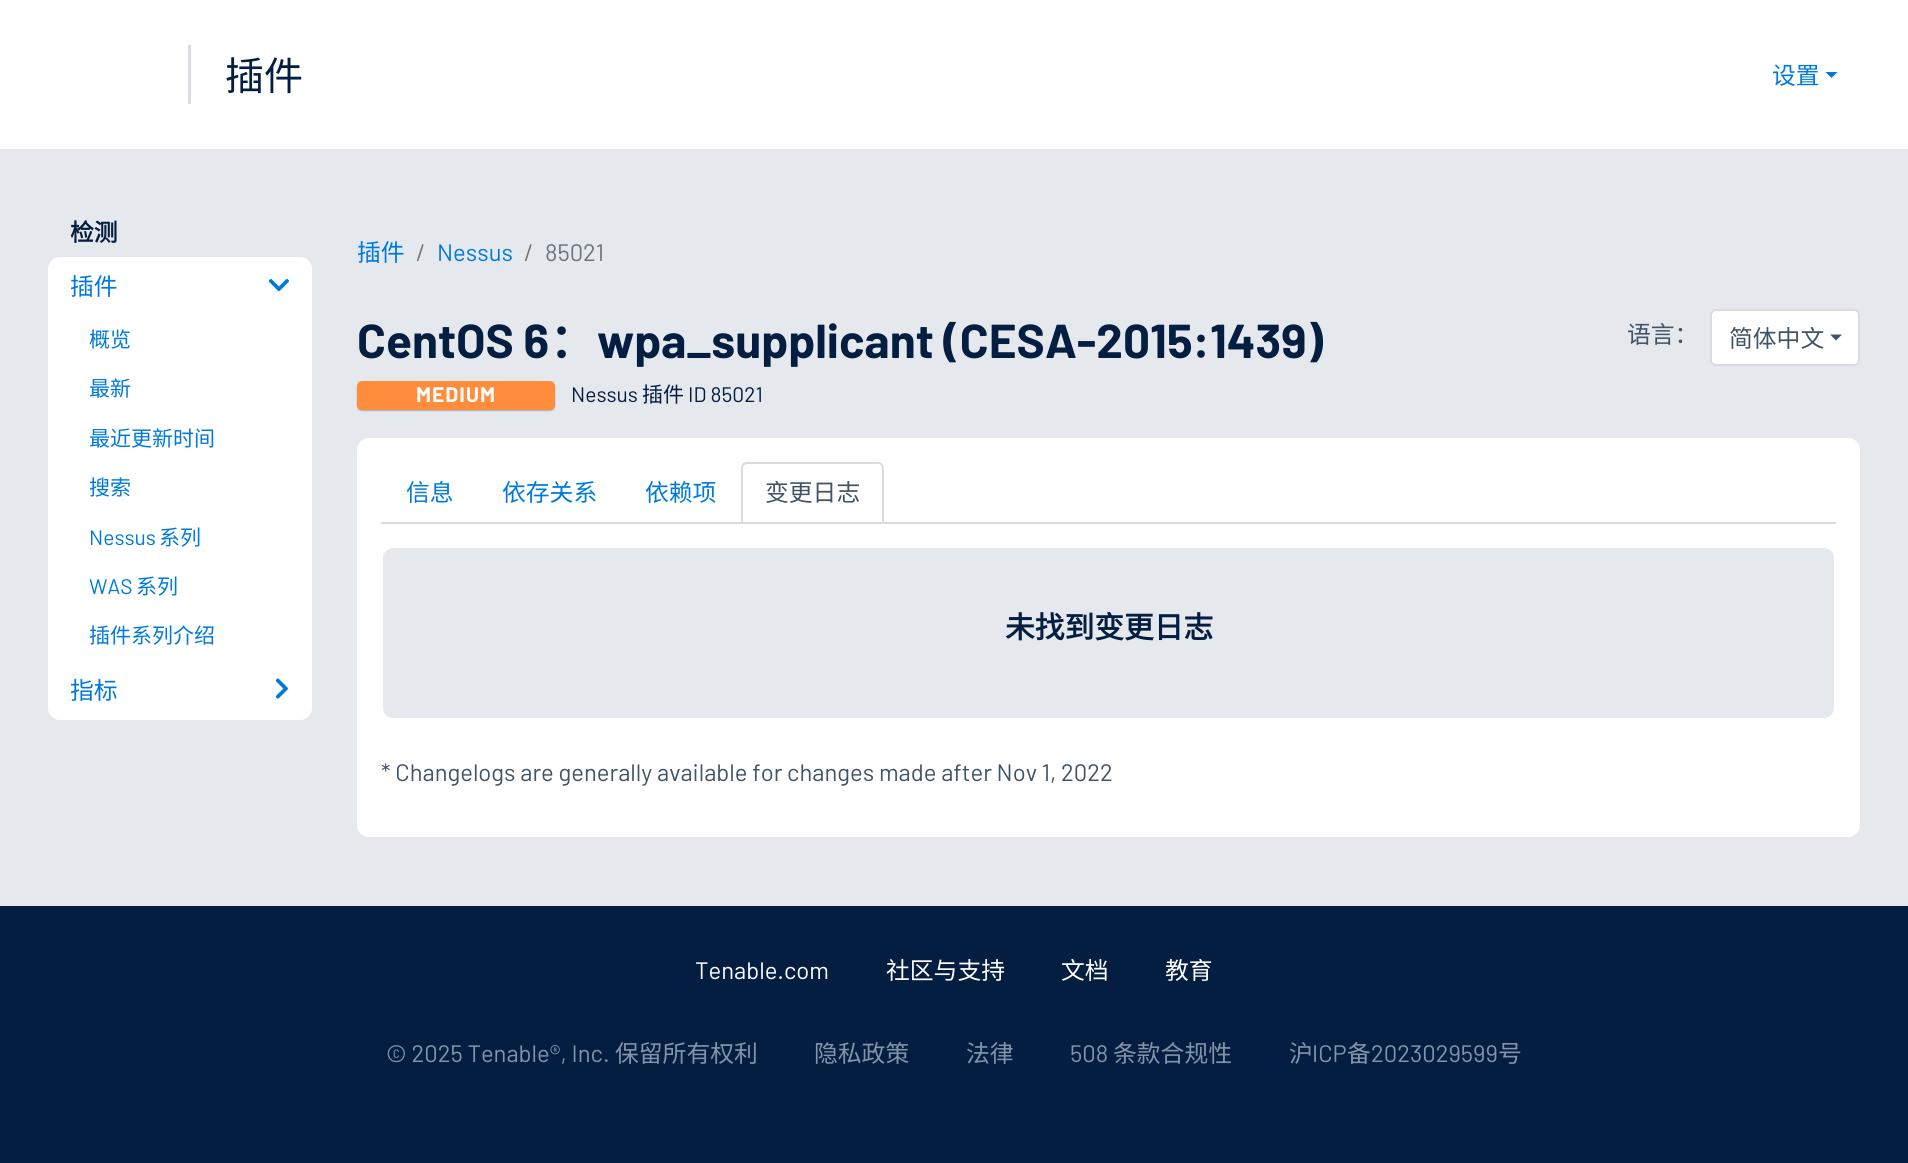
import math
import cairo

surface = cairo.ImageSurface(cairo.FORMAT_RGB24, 1908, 1163)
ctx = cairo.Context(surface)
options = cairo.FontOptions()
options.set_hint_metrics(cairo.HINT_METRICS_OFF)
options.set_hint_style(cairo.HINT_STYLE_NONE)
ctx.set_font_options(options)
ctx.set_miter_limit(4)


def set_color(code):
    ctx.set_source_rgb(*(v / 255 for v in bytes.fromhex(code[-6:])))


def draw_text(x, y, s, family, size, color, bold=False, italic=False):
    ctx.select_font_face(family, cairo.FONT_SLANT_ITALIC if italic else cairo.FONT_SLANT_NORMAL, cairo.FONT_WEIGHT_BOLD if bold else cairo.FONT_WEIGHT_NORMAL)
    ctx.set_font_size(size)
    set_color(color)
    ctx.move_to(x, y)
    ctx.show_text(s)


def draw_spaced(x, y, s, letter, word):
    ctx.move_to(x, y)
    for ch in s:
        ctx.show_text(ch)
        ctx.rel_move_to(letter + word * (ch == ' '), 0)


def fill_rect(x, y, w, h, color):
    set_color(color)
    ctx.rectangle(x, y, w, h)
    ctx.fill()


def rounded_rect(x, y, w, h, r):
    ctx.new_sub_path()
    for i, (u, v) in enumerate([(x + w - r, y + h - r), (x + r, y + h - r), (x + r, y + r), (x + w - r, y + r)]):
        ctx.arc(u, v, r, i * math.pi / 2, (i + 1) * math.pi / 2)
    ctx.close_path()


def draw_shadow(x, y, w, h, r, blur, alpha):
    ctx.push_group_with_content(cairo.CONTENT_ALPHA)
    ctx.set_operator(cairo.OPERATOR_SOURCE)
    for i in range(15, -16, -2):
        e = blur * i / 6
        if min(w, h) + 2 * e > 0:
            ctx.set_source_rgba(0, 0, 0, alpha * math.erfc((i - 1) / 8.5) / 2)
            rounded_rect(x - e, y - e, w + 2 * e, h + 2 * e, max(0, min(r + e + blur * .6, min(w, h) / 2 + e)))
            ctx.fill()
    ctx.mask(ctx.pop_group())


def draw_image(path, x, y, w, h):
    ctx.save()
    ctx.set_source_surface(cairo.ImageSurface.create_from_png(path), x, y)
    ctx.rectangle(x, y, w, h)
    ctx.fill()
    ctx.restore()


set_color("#ffffff")
ctx.paint()
fill_rect(188, 45, 3, 59, "#d9dbe0")
draw_text(225, 90, "插件", "Noto Sans CJK SC", 39, "#041e42")
draw_text(1772, 84, "设置", "Noto Sans CJK SC", 23.8, "#0079dd")
ctx.new_path()
ctx.move_to(1825.5, 72)
ctx.line_to(1837.5, 72)
ctx.line_to(1831.5, 78)
ctx.close_path()
ctx.fill()
fill_rect(0, 149, 1908, 757, "#e5e9ed")
draw_text(70, 241, "检测", "Noto Sans CJK SC", 23.8, "#041e42", bold=True)
set_color("#ffffff")
rounded_rect(48, 257, 264, 463, 12)
ctx.fill()
draw_text(70, 295, "插件", "Noto Sans CJK SC", 23.8, "#0079dd")
draw_image("assets/img1.png", 268, 278, 21, 14)
draw_text(89, 347, "概览", "Noto Sans CJK SC", 21, "#0079dd")
draw_text(89, 396, "最新", "Noto Sans CJK SC", 21, "#0079dd")
draw_text(89, 446, "最近更新时间", "Noto Sans CJK SC", 21, "#0079dd")
draw_text(89, 495, "搜索", "Noto Sans CJK SC", 21, "#0079dd")
draw_text(89, 545, "Nessus", "Barlow", 21, "#0079dd")
draw_text(159, 545, "系列", "Noto Sans CJK SC", 21, "#0079dd")
draw_text(89, 594, "WAS", "Barlow", 21, "#0079dd")
draw_text(136, 594, "系列", "Noto Sans CJK SC", 21, "#0079dd")
draw_text(89, 643, "插件系列介绍", "Noto Sans CJK SC", 21, "#0079dd")
draw_text(70, 699, "指标", "Noto Sans CJK SC", 23.8, "#0079dd")
draw_image("assets/img2.png", 275, 678, 14, 21)
draw_text(357, 261, "插件", "Noto Sans CJK SC", 23.8, "#0079dd")
draw_text(416, 261, "/", "Barlow", 23.8, "#6c757d")
draw_text(437, 261, "Nessus", "Barlow", 23.8, "#0079dd")
draw_text(524, 261, "/", "Barlow", 23.8, "#6c757d")
draw_text(545, 261, "85021", "Barlow", 23.8, "#6c757d")
draw_text(357, 358, "CentOS 6", "Barlow", 47.6, "#041e42", bold=True)
draw_text(549, 358, "：", "Noto Sans CJK SC", 47.6, "#041e42", bold=True)
draw_text(597, 358, "wpa_supplicant (CESA-2015:1439)", "Barlow", 47.6, "#041e42", bold=True)
set_color("#000000")
draw_shadow(357, 383, 198, 28, 5, 0.5, 0.25)
set_color("#ff8d3c")
rounded_rect(357, 381, 198, 29, 5)
ctx.fill()
ctx.set_font_size(21)
set_color("#ffffff")
draw_spaced(416, 402, "MEDIUM", 1, 0)
draw_text(571, 402, "Nessus", "Barlow", 21, "#041e42")
draw_text(642, 402, "插件", "Noto Sans CJK SC", 21, "#041e42")
draw_text(688, 402, "ID 85021", "Barlow", 21, "#041e42")
draw_text(1627, 343, "语言：", "Noto Sans CJK SC", 23.8, "#415465")
set_color("#ffffff")
rounded_rect(1711, 310, 148, 55, 5)
ctx.fill_preserve()
set_color("#d9dbe0")
ctx.stroke()
draw_text(1729, 347, "简体中文", "Noto Sans CJK SC", 23.8, "#415465")
ctx.new_path()
ctx.move_to(1830, 334.5)
ctx.line_to(1842, 334.5)
ctx.line_to(1836, 340.5)
ctx.close_path()
ctx.fill()
set_color("#ffffff")
rounded_rect(358, 439, 1501, 397, 11)
ctx.fill_preserve()
ctx.stroke()
fill_rect(381, 522, 1455, 2, "#d9dbe0")
draw_text(406, 501, "信息", "Noto Sans CJK SC", 23.8, "#0079dd")
draw_text(502, 501, "依存关系", "Noto Sans CJK SC", 23.8, "#0079dd")
draw_text(645, 501, "依赖项", "Noto Sans CJK SC", 23.8, "#0079dd")
set_color("#ffffff")
ctx.new_path()
ctx.move_to(747, 463)
ctx.line_to(878, 463)
ctx.curve_to(881, 463, 883, 465, 883, 468)
ctx.line_to(883, 523)
ctx.line_to(742, 523)
ctx.line_to(742, 468)
ctx.curve_to(742, 465, 744, 463, 747, 463)
ctx.close_path()
ctx.fill_preserve()
set_color("#d9dbe0")
ctx.stroke()
draw_text(765, 501, "变更日志", "Noto Sans CJK SC", 23.8, "#415465")
set_color("#e5e9ed")
rounded_rect(382, 547, 1453, 172, 11)
ctx.fill_preserve()
set_color("#ffffff")
ctx.stroke()
draw_text(1005, 638, "未找到变更日志", "Noto Sans CJK SC", 29.75, "#041e42", bold=True)
draw_text(381, 781, "* Changelogs are generally available for changes made after Nov 1, 2022", "Barlow", 23.8, "#415465")
fill_rect(0, 906, 1908, 257, "#041e42")
draw_text(695, 979, "Tenable.com", "Barlow", 23.8, "#ffffff")
draw_text(886, 979, "社区与支持", "Noto Sans CJK SC", 23.8, "#ffffff")
draw_text(1061, 979, "文档", "Noto Sans CJK SC", 23.8, "#ffffff")
draw_text(1165, 979, "教育", "Noto Sans CJK SC", 23.8, "#ffffff")
draw_text(386, 1062, "© 2025 Tenable®, Inc.", "Barlow", 23.8, "#8294a8")
draw_text(615, 1062, "保留所有权利", "Noto Sans CJK SC", 23.8, "#8294a8")
draw_text(814, 1062, "隐私政策", "Noto Sans CJK SC", 23.8, "#8294a8")
draw_text(966, 1062, "法律", "Noto Sans CJK SC", 23.8, "#8294a8")
draw_text(1070, 1062, "508", "Barlow", 23.8, "#8294a8")
draw_text(1113, 1062, "条款合规性", "Noto Sans CJK SC", 23.8, "#8294a8")
draw_text(1289, 1062, "沪", "Noto Sans CJK SC", 23.8, "#8294a8")
draw_text(1312, 1062, "ICP", "Barlow", 23.8, "#8294a8")
draw_text(1347, 1062, "备", "Noto Sans CJK SC", 23.8, "#8294a8")
draw_text(1371, 1062, "2023029599", "Barlow", 23.8, "#8294a8")
draw_text(1498, 1062, "号", "Noto Sans CJK SC", 23.8, "#8294a8")
surface.write_to_png("output.png")
